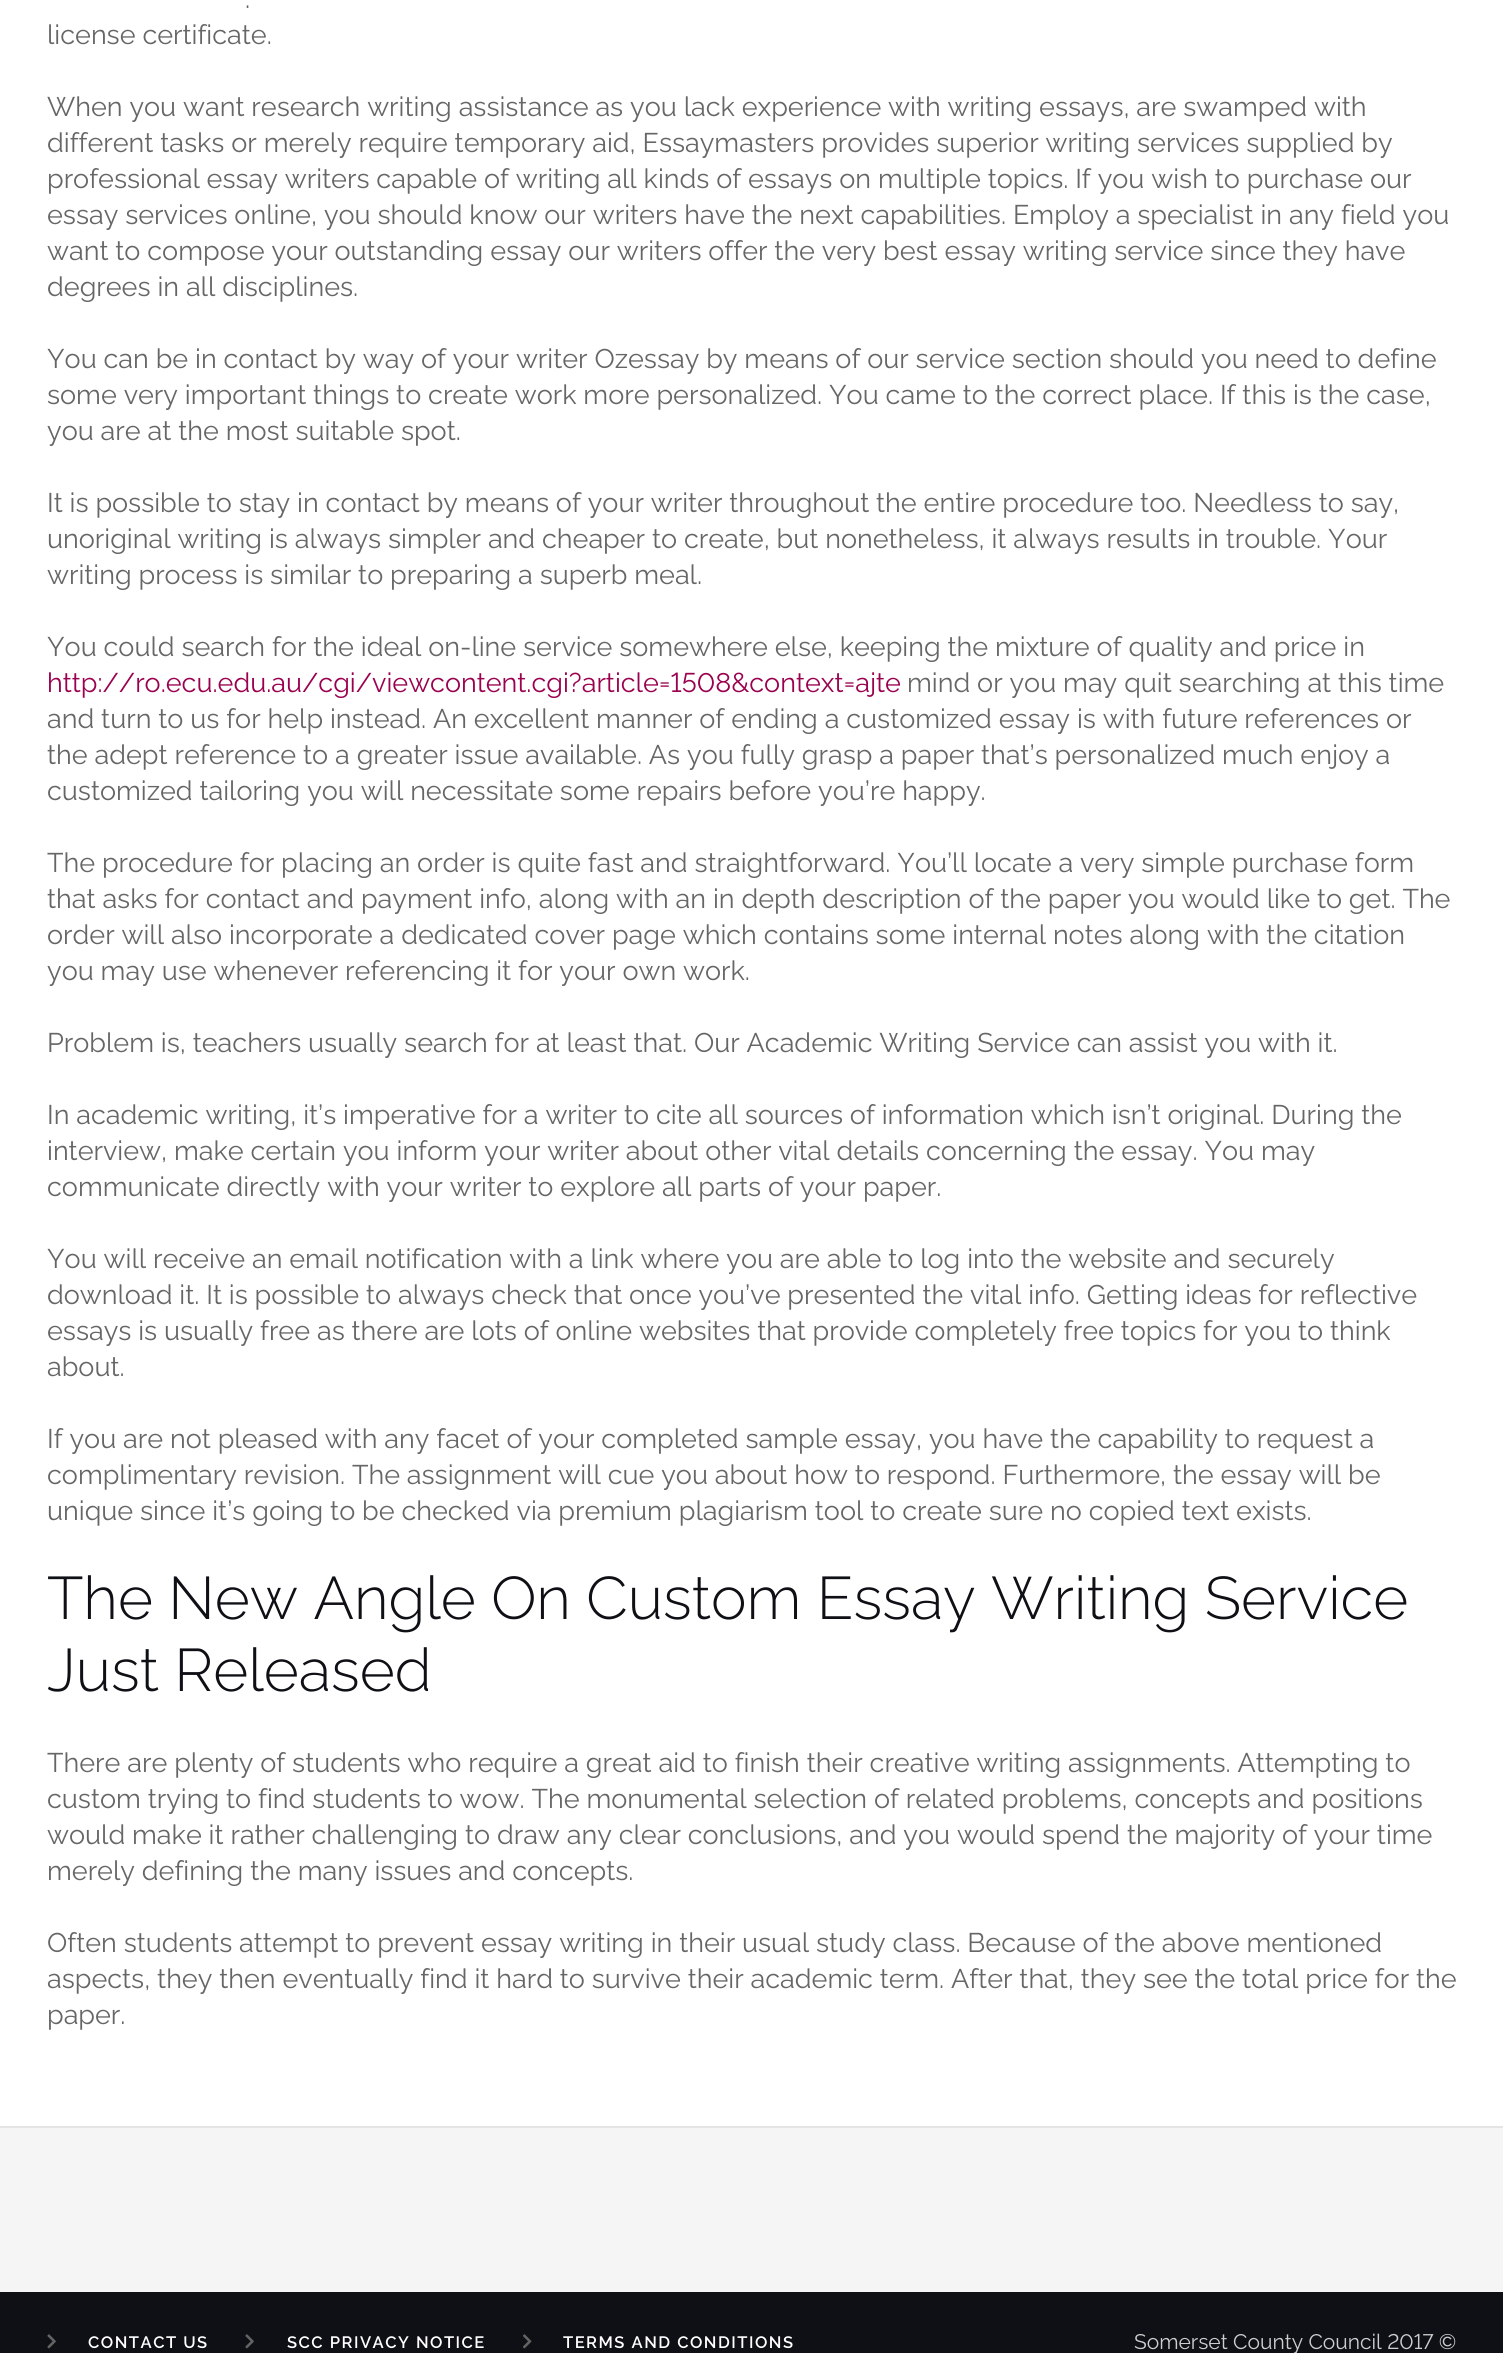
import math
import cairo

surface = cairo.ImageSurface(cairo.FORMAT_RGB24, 1503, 2353)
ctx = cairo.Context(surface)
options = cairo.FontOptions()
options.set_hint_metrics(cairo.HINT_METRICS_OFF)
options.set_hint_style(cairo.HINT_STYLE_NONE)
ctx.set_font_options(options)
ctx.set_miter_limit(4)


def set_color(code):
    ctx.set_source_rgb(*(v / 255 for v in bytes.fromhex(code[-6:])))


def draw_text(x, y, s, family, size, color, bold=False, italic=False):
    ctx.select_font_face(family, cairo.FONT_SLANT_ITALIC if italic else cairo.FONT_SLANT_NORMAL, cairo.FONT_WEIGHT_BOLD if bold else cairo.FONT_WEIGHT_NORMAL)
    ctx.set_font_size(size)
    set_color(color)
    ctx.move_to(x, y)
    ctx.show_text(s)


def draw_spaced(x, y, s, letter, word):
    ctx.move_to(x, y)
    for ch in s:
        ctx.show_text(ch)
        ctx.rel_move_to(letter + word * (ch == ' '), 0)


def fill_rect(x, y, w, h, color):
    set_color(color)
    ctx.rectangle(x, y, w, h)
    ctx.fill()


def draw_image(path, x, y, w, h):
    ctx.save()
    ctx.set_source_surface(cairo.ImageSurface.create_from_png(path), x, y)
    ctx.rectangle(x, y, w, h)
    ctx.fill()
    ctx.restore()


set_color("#ffffff")
ctx.paint()
draw_text(245, 8, ".", "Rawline", 27, "#666666")
draw_text(47, 44, "license certificate.", "Rawline", 27, "#666666")
draw_text(47, 116, "When you want research writing assistance as you lack experience with writing essays, are swamped with", "Rawline", 27, "#666666")
draw_text(47, 152, "different tasks or merely require temporary aid, Essaymasters provides superior writing services supplied by", "Rawline", 27, "#666666")
draw_text(47, 188, "professional essay writers capable of writing all kinds of essays on multiple topics. If you wish to purchase our", "Rawline", 27, "#666666")
draw_text(47, 224, "essay services online, you should know our writers have the next capabilities. Employ a specialist in any field you", "Rawline", 27, "#666666")
draw_text(47, 260, "want to compose your outstanding essay our writers offer the very best essay writing service since they have", "Rawline", 27, "#666666")
draw_text(47, 296, "degrees in all disciplines.", "Rawline", 27, "#666666")
draw_text(47, 368, "You can be in contact by way of your writer Ozessay by means of our service section should you need to define", "Rawline", 27, "#666666")
draw_text(47, 404, "some very important things to create work more personalized. You came to the correct place. If this is the case,", "Rawline", 27, "#666666")
draw_text(47, 440, "you are at the most suitable spot.", "Rawline", 27, "#666666")
draw_text(47, 512, "It is possible to stay in contact by means of your writer throughout the entire procedure too. Needless to say,", "Rawline", 27, "#666666")
draw_text(47, 548, "unoriginal writing is always simpler and cheaper to create, but nonetheless, it always results in trouble. Your", "Rawline", 27, "#666666")
draw_text(47, 584, "writing process is similar to preparing a superb meal.", "Rawline", 27, "#666666")
draw_text(47, 656, "You could search for the ideal on-line service somewhere else, keeping the mixture of quality and price in", "Rawline", 27, "#666666")
draw_text(47, 692, "http://ro.ecu.edu.au/cgi/viewcontent.cgi?article=1508&context=ajte", "Rawline", 27, "#9a014e")
draw_text(907, 692, "mind or you may quit searching at this time", "Rawline", 27, "#666666")
draw_text(47, 728, "and turn to us for help instead. An excellent manner of ending a customized essay is with future references or", "Rawline", 27, "#666666")
draw_text(47, 764, "the adept reference to a greater issue available. As you fully grasp a paper that’s personalized much enjoy a", "Rawline", 27, "#666666")
draw_text(47, 800, "customized tailoring you will necessitate some repairs before you’re happy.", "Rawline", 27, "#666666")
draw_text(47, 872, "The procedure for placing an order is quite fast and straightforward. You’ll locate a very simple purchase form", "Rawline", 27, "#666666")
draw_text(47, 908, "that asks for contact and payment info, along with an in depth description of the paper you would like to get. The", "Rawline", 27, "#666666")
draw_text(47, 944, "order will also incorporate a dedicated cover page which contains some internal notes along with the citation", "Rawline", 27, "#666666")
draw_text(47, 980, "you may use whenever referencing it for your own work.", "Rawline", 27, "#666666")
draw_text(47, 1052, "Problem is, teachers usually search for at least that. Our Academic Writing Service can assist you with it.", "Rawline", 27, "#666666")
draw_text(47, 1124, "In academic writing, it’s imperative for a writer to cite all sources of information which isn’t original. During the", "Rawline", 27, "#666666")
draw_text(47, 1160, "interview, make certain you inform your writer about other vital details concerning the essay. You may", "Rawline", 27, "#666666")
draw_text(47, 1196, "communicate directly with your writer to explore all parts of your paper.", "Rawline", 27, "#666666")
draw_text(47, 1268, "You will receive an email notification with a link where you are able to log into the website and securely", "Rawline", 27, "#666666")
draw_text(47, 1304, "download it. It is possible to always check that once you’ve presented the vital info. Getting ideas for reflective", "Rawline", 27, "#666666")
draw_text(47, 1340, "essays is usually free as there are lots of online websites that provide completely free topics for you to think", "Rawline", 27, "#666666")
draw_text(47, 1376, "about.", "Rawline", 27, "#666666")
draw_text(47, 1448, "If you are not pleased with any facet of your completed sample essay, you have the capability to request a", "Rawline", 27, "#666666")
draw_text(47, 1484, "complimentary revision. The assignment will cue you about how to respond. Furthermore, the essay will be", "Rawline", 27, "#666666")
draw_text(47, 1520, "unique since it’s going to be checked via premium plagiarism tool to create sure no copied text exists.", "Rawline", 27, "#666666")
draw_text(47, 1619, "The New Angle On Custom Essay Writing Service", "Raleway Light", 60, "#0e1015")
draw_text(47, 1691, "Just Released", "Raleway Light", 60, "#0e1015")
draw_text(47, 1772, "There are plenty of students who require a great aid to finish their creative writing assignments. Attempting to", "Rawline", 27, "#666666")
draw_text(47, 1808, "custom trying to find students to wow. The monumental selection of related problems, concepts and positions", "Rawline", 27, "#666666")
draw_text(47, 1844, "would make it rather challenging to draw any clear conclusions, and you would spend the majority of your time", "Rawline", 27, "#666666")
draw_text(47, 1880, "merely defining the many issues and concepts.", "Rawline", 27, "#666666")
draw_text(47, 1952, "Often students attempt to prevent essay writing in their usual study class. Because of the above mentioned", "Rawline", 27, "#666666")
draw_text(47, 1988, "aspects, they then eventually find it hard to survive their academic term. After that, they see the total price for the", "Rawline", 27, "#666666")
draw_text(47, 2024, "paper.", "Rawline", 27, "#666666")
fill_rect(0, 2128, 1503, 164, "#f5f5f5")
fill_rect(0, 2126, 1503, 2, "#e4e4e4")
fill_rect(0, 2292, 1503, 61, "#0e1015")
draw_image("assets/img1.png", 47, 2334, 9, 15)
ctx.select_font_face("Rawline SemiBold")
ctx.set_font_size(16.5)
set_color("#ffffff")
draw_spaced(88, 2348, "CONTACT US", 1.5, 0)
draw_image("assets/img1.png", 245, 2334, 9, 15)
draw_spaced(287, 2348, "SCC PRIVACY NOTICE", 1.5, 0)
draw_image("assets/img2.png", 523, 2334, 9, 15)
draw_spaced(563, 2348, "TERMS AND CONDITIONS", 1.5, 0)
draw_text(1134, 2349, "Somerset County Council 2017 ©", "Rawline", 21, "#cececf")
surface.write_to_png("output.png")
